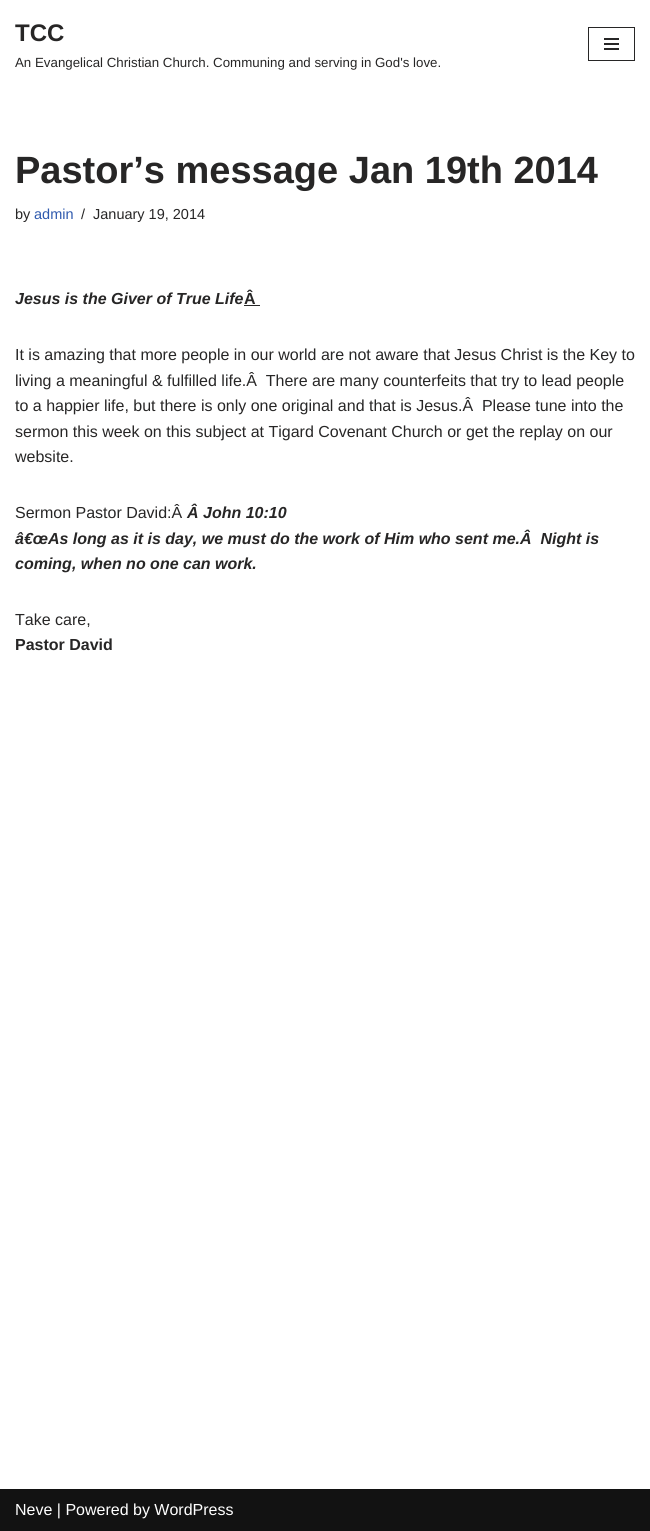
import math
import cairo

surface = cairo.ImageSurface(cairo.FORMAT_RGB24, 650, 1531)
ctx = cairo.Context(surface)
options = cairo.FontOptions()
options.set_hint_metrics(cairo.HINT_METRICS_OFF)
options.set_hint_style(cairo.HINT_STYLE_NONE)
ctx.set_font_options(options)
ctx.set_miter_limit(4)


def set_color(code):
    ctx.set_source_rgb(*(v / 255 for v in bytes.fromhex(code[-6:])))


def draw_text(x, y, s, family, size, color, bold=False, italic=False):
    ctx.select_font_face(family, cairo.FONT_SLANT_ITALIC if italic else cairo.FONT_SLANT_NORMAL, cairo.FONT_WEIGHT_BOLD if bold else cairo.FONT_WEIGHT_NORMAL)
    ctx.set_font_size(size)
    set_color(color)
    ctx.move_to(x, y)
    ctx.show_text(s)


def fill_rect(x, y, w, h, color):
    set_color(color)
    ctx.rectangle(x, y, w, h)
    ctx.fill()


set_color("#ffffff")
ctx.paint()
draw_text(15, 41, "TCC", "Liberation Sans", 24, "#272626", bold=True)
draw_text(15, 67, "An Evangelical Christian Church. Communing and serving in God's love.", "Liberation Sans", 13.3, "#272626")
ctx.rectangle(588.5, 27.5, 46, 33)
ctx.set_line_width(1)
ctx.stroke()
fill_rect(604, 38, 15, 2, "#272626")
fill_rect(604, 43, 15, 2, "#272626")
fill_rect(604, 48, 15, 2, "#272626")
draw_text(15, 183, "Pastor’s message Jan 19th 2014", "Liberation Sans", 38, "#272626", bold=True)
draw_text(15, 219, "by", "Liberation Sans", 14.5, "#272626")
draw_text(34, 219, "admin", "Liberation Sans", 14.5, "#2f5aae")
draw_text(81, 219, "/", "Liberation Sans", 14.5, "#272626")
draw_text(93, 219, "January 19, 2014", "Liberation Sans", 14.5, "#272626")
draw_text(15, 304, "Jesus is the Giver of True Life", "Liberation Sans", 16, "#272626", bold=True, italic=True)
draw_text(244, 304, "Â", "Liberation Sans", 16, "#272626", bold=True)
fill_rect(244, 305, 16, 1, "#272626")
draw_text(15, 360, "It is amazing that more people in our world are not aware that Jesus Christ is the Key to", "Liberation Sans", 16, "#272626")
draw_text(15, 386, "living a meaningful & fulfilled life.Â  There are many counterfeits that try to lead people", "Liberation Sans", 16, "#272626")
draw_text(15, 411, "to a happier life, but there is only one original and that is Jesus.Â  Please tune into the", "Liberation Sans", 16, "#272626")
draw_text(15, 437, "sermon this week on this subject at Tigard Covenant Church or get the replay on our", "Liberation Sans", 16, "#272626")
draw_text(15, 462, "website.", "Liberation Sans", 16, "#272626")
draw_text(15, 518, "Sermon Pastor David:Â", "Liberation Sans", 16, "#272626")
draw_text(187, 518, "Â John 10:10", "Liberation Sans", 16, "#272626", bold=True, italic=True)
draw_text(15, 544, "â€œAs long as it is day, we must do the work of Him who sent me.Â  Night is", "Liberation Sans", 16, "#272626", bold=True, italic=True)
draw_text(15, 569, "coming, when no one can work.", "Liberation Sans", 16, "#272626", bold=True, italic=True)
draw_text(15, 625, "Take care,", "Liberation Sans", 16, "#272626")
draw_text(15, 650, "Pastor David", "Liberation Sans", 16, "#272626", bold=True)
fill_rect(0, 1489, 650, 42, "#121212")
draw_text(15, 1515, "Neve | Powered by WordPress", "Liberation Sans", 16, "#ffffff")
surface.write_to_png("output.png")
